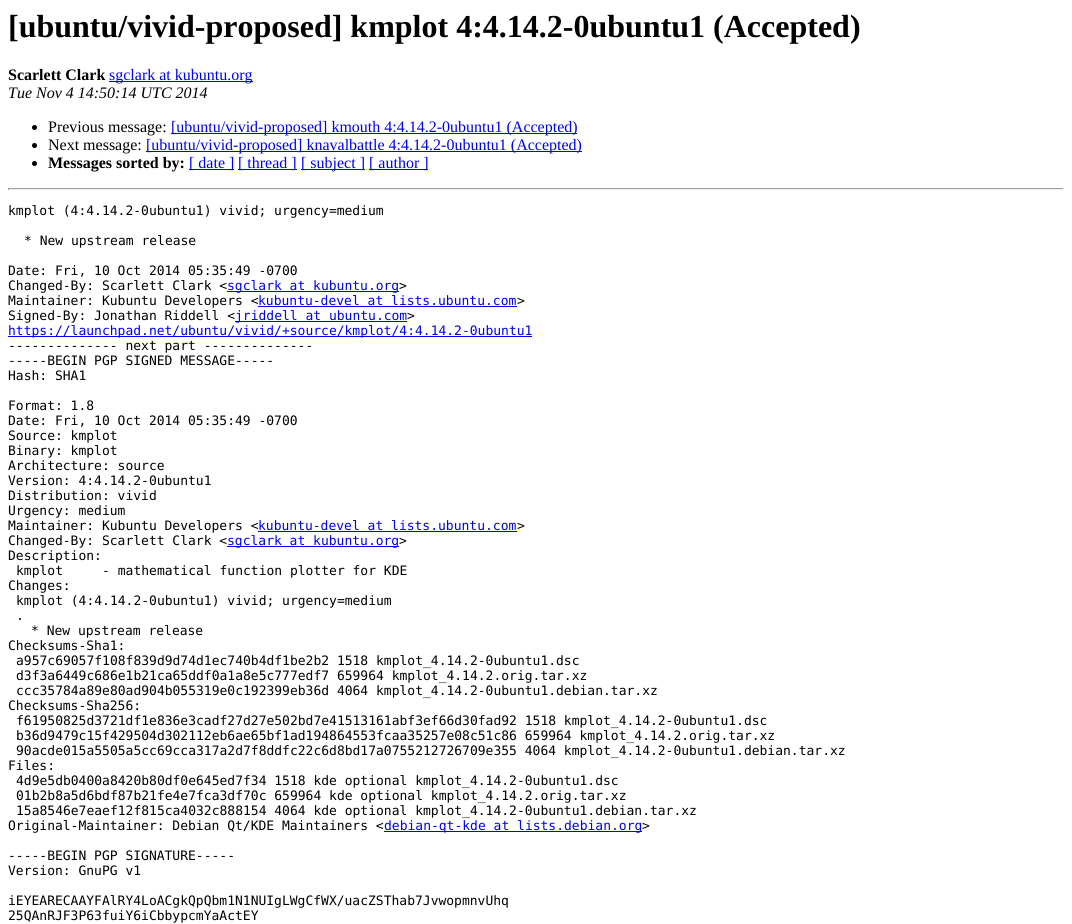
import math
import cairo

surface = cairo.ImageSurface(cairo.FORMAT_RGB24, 1072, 924)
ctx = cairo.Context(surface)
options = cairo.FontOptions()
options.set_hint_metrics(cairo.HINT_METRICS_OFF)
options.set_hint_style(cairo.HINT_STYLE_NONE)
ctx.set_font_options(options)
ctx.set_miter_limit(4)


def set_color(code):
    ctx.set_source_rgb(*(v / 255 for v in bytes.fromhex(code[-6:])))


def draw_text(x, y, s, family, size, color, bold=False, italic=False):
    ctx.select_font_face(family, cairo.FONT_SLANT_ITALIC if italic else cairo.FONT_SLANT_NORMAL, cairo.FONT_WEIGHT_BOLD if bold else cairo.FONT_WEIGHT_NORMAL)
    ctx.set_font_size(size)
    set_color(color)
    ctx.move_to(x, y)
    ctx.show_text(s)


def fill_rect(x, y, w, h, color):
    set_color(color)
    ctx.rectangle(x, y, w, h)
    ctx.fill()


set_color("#ffffff")
ctx.paint()
draw_text(8, 37, "[ubuntu/vivid-proposed] kmplot 4:4.14.2-0ubuntu1 (Accepted)", "Liberation Serif", 32, "#000000", bold=True)
draw_text(8, 80, "Scarlett Clark", "Liberation Serif", 16, "#000000", bold=True)
fill_rect(109, 81, 144, 1, "#0000ee")
draw_text(109, 80, "sgclark at kubuntu.org", "Liberation Serif", 16, "#0000ee")
draw_text(8, 98, "Tue Nov 4 14:50:14 UTC 2014", "Liberation Serif", 16, "#000000", italic=True)
ctx.new_path()
ctx.arc(34.5, 127.5, 2.5, 0, 2 * math.pi)
ctx.fill()
draw_text(48, 132, "Previous message:", "Liberation Serif", 16, "#000000")
fill_rect(171, 133, 406, 1, "#0000ee")
draw_text(171, 132, "[ubuntu/vivid-proposed] kmouth 4:4.14.2-0ubuntu1 (Accepted)", "Liberation Serif", 16, "#0000ee")
set_color("#000000")
ctx.new_path()
ctx.arc(34.5, 145.5, 2.5, 0, 2 * math.pi)
ctx.fill()
draw_text(48, 150, "Next message:", "Liberation Serif", 16, "#000000")
fill_rect(146, 151, 436, 1, "#0000ee")
draw_text(146, 150, "[ubuntu/vivid-proposed] knavalbattle 4:4.14.2-0ubuntu1 (Accepted)", "Liberation Serif", 16, "#0000ee")
set_color("#000000")
ctx.new_path()
ctx.arc(34.5, 163.5, 2.5, 0, 2 * math.pi)
ctx.fill()
draw_text(48, 168, "Messages sorted by:", "Liberation Serif", 16, "#000000", bold=True)
fill_rect(189, 169, 45, 1, "#0000ee")
draw_text(189, 168, "[ date ]", "Liberation Serif", 16, "#0000ee")
fill_rect(238, 169, 59, 1, "#0000ee")
draw_text(238, 168, "[ thread ]", "Liberation Serif", 16, "#0000ee")
fill_rect(301, 169, 64, 1, "#0000ee")
draw_text(301, 168, "[ subject ]", "Liberation Serif", 16, "#0000ee")
fill_rect(369, 169, 59, 1, "#0000ee")
draw_text(369, 168, "[ author ]", "Liberation Serif", 16, "#0000ee")
fill_rect(8, 188, 1056, 1, "#9f9f9f")
fill_rect(1063, 188, 1, 2, "#eeeeee")
fill_rect(8, 189, 1056, 1, "#eeeeee")
fill_rect(8, 188, 1, 2, "#9f9f9f")
draw_text(8, 215, "kmplot (4:4.14.2-0ubuntu1) vivid; urgency=medium", "DejaVu Sans Mono", 13, "#000000")
draw_text(24, 245, "* New upstream release", "DejaVu Sans Mono", 13, "#000000")
draw_text(8, 275, "Date: Fri, 10 Oct 2014 05:35:49 -0700", "DejaVu Sans Mono", 13, "#000000")
draw_text(8, 290, "Changed-By: Scarlett Clark <", "DejaVu Sans Mono", 13, "#000000")
fill_rect(227, 291, 172, 1, "#0000ee")
draw_text(227, 290, "sgclark at kubuntu.org", "DejaVu Sans Mono", 13, "#0000ee")
draw_text(399, 290, ">", "DejaVu Sans Mono", 13, "#000000")
draw_text(8, 305, "Maintainer: Kubuntu Developers <", "DejaVu Sans Mono", 13, "#000000")
draw_text(258, 305, "kubuntu-devel at lists.ubuntu.com", "DejaVu Sans Mono", 13, "#0000ee")
fill_rect(258, 306, 259, 1, "#0000ee")
draw_text(517, 305, ">", "DejaVu Sans Mono", 13, "#000000")
draw_text(8, 320, "Signed-By: Jonathan Riddell <", "DejaVu Sans Mono", 13, "#000000")
fill_rect(235, 321, 172, 1, "#0000ee")
draw_text(235, 320, "jriddell at ubuntu.com", "DejaVu Sans Mono", 13, "#0000ee")
draw_text(407, 320, ">", "DejaVu Sans Mono", 13, "#000000")
fill_rect(8, 336, 524, 1, "#0000ee")
draw_text(8, 335, "https://launchpad.net/ubuntu/vivid/+source/kmplot/4:4.14.2-0ubuntu1", "DejaVu Sans Mono", 13, "#0000ee")
draw_text(8, 350, "-------------- next part --------------", "DejaVu Sans Mono", 13, "#000000")
draw_text(8, 365, "-----BEGIN PGP SIGNED MESSAGE-----", "DejaVu Sans Mono", 13, "#000000")
draw_text(8, 380, "Hash: SHA1", "DejaVu Sans Mono", 13, "#000000")
draw_text(8, 410, "Format: 1.8", "DejaVu Sans Mono", 13, "#000000")
draw_text(8, 425, "Date: Fri, 10 Oct 2014 05:35:49 -0700", "DejaVu Sans Mono", 13, "#000000")
draw_text(8, 440, "Source: kmplot", "DejaVu Sans Mono", 13, "#000000")
draw_text(8, 455, "Binary: kmplot", "DejaVu Sans Mono", 13, "#000000")
draw_text(8, 470, "Architecture: source", "DejaVu Sans Mono", 13, "#000000")
draw_text(8, 485, "Version: 4:4.14.2-0ubuntu1", "DejaVu Sans Mono", 13, "#000000")
draw_text(8, 500, "Distribution: vivid", "DejaVu Sans Mono", 13, "#000000")
draw_text(8, 515, "Urgency: medium", "DejaVu Sans Mono", 13, "#000000")
draw_text(8, 530, "Maintainer: Kubuntu Developers <", "DejaVu Sans Mono", 13, "#000000")
draw_text(258, 530, "kubuntu-devel at lists.ubuntu.com", "DejaVu Sans Mono", 13, "#0000ee")
fill_rect(258, 531, 259, 1, "#0000ee")
draw_text(517, 530, ">", "DejaVu Sans Mono", 13, "#000000")
draw_text(8, 545, "Changed-By: Scarlett Clark <", "DejaVu Sans Mono", 13, "#000000")
fill_rect(227, 546, 172, 1, "#0000ee")
draw_text(227, 545, "sgclark at kubuntu.org", "DejaVu Sans Mono", 13, "#0000ee")
draw_text(399, 545, ">", "DejaVu Sans Mono", 13, "#000000")
draw_text(8, 560, "Description:", "DejaVu Sans Mono", 13, "#000000")
draw_text(16, 575, "kmplot     - mathematical function plotter for KDE", "DejaVu Sans Mono", 13, "#000000")
draw_text(8, 590, "Changes:", "DejaVu Sans Mono", 13, "#000000")
draw_text(16, 605, "kmplot (4:4.14.2-0ubuntu1) vivid; urgency=medium", "DejaVu Sans Mono", 13, "#000000")
draw_text(16, 620, ".", "DejaVu Sans Mono", 13, "#000000")
draw_text(31, 635, "* New upstream release", "DejaVu Sans Mono", 13, "#000000")
draw_text(8, 650, "Checksums-Sha1:", "DejaVu Sans Mono", 13, "#000000")
draw_text(16, 665, "a957c69057f108f839d9d74d1ec740b4df1be2b2 1518 kmplot_4.14.2-0ubuntu1.dsc", "DejaVu Sans Mono", 13, "#000000")
draw_text(16, 680, "d3f3a6449c686e1b21ca65ddf0a1a8e5c777edf7 659964 kmplot_4.14.2.orig.tar.xz", "DejaVu Sans Mono", 13, "#000000")
draw_text(16, 695, "ccc35784a89e80ad904b055319e0c192399eb36d 4064 kmplot_4.14.2-0ubuntu1.debian.tar.xz", "DejaVu Sans Mono", 13, "#000000")
draw_text(8, 710, "Checksums-Sha256:", "DejaVu Sans Mono", 13, "#000000")
draw_text(16, 725, "f61950825d3721df1e836e3cadf27d27e502bd7e41513161abf3ef66d30fad92 1518 kmplot_4.14.2-0ubuntu1.dsc", "DejaVu Sans Mono", 13, "#000000")
draw_text(16, 740, "b36d9479c15f429504d302112eb6ae65bf1ad194864553fcaa35257e08c51c86 659964 kmplot_4.14.2.orig.tar.xz", "DejaVu Sans Mono", 13, "#000000")
draw_text(16, 755, "90acde015a5505a5cc69cca317a2d7f8ddfc22c6d8bd17a0755212726709e355 4064 kmplot_4.14.2-0ubuntu1.debian.tar.xz", "DejaVu Sans Mono", 13, "#000000")
draw_text(8, 770, "Files:", "DejaVu Sans Mono", 13, "#000000")
draw_text(16, 785, "4d9e5db0400a8420b80df0e645ed7f34 1518 kde optional kmplot_4.14.2-0ubuntu1.dsc", "DejaVu Sans Mono", 13, "#000000")
draw_text(16, 800, "01b2b8a5d6bdf87b21fe4e7fca3df70c 659964 kde optional kmplot_4.14.2.orig.tar.xz", "DejaVu Sans Mono", 13, "#000000")
draw_text(16, 815, "15a8546e7eaef12f815ca4032c888154 4064 kde optional kmplot_4.14.2-0ubuntu1.debian.tar.xz", "DejaVu Sans Mono", 13, "#000000")
draw_text(8, 830, "Original-Maintainer: Debian Qt/KDE Maintainers <", "DejaVu Sans Mono", 13, "#000000")
fill_rect(384, 831, 258, 1, "#0000ee")
draw_text(384, 830, "debian-qt-kde at lists.debian.org", "DejaVu Sans Mono", 13, "#0000ee")
draw_text(642, 830, ">", "DejaVu Sans Mono", 13, "#000000")
draw_text(8, 860, "-----BEGIN PGP SIGNATURE-----", "DejaVu Sans Mono", 13, "#000000")
draw_text(8, 875, "Version: GnuPG v1", "DejaVu Sans Mono", 13, "#000000")
draw_text(8, 905, "iEYEARECAAYFAlRY4LoACgkQpQbm1N1NUIgLWgCfWX/uacZSThab7JvwopmnvUhq", "DejaVu Sans Mono", 13, "#000000")
draw_text(8, 920, "25QAnRJF3P63fuiY6iCbbypcmYaActEY", "DejaVu Sans Mono", 13, "#000000")
surface.write_to_png("output.png")
